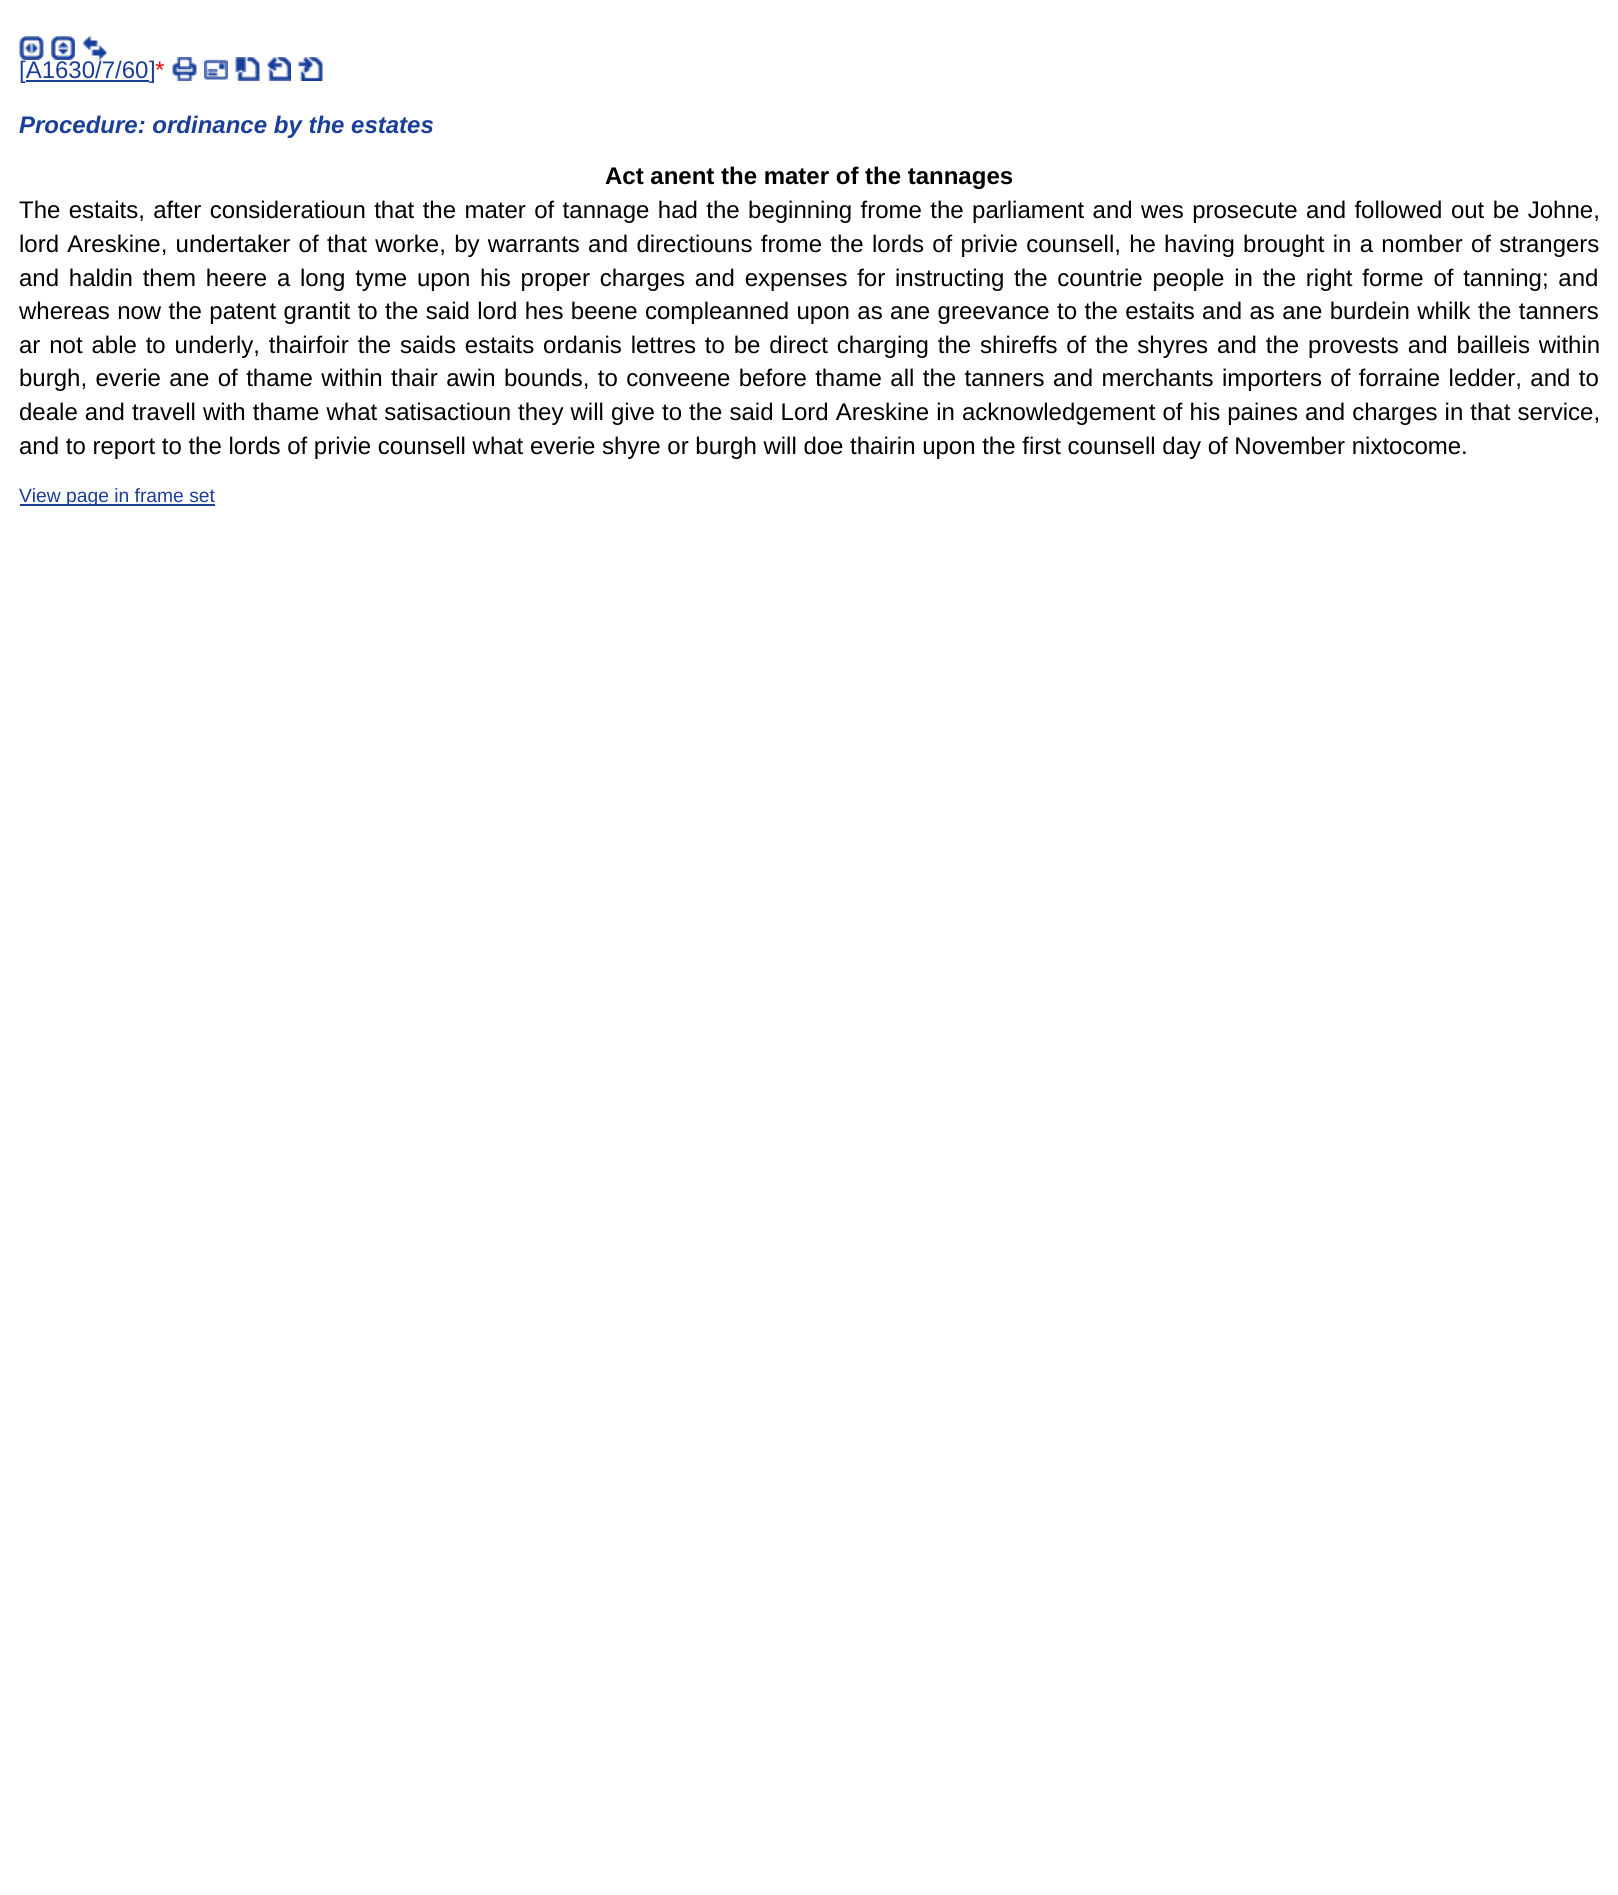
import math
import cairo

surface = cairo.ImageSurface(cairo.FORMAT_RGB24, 1618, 1895)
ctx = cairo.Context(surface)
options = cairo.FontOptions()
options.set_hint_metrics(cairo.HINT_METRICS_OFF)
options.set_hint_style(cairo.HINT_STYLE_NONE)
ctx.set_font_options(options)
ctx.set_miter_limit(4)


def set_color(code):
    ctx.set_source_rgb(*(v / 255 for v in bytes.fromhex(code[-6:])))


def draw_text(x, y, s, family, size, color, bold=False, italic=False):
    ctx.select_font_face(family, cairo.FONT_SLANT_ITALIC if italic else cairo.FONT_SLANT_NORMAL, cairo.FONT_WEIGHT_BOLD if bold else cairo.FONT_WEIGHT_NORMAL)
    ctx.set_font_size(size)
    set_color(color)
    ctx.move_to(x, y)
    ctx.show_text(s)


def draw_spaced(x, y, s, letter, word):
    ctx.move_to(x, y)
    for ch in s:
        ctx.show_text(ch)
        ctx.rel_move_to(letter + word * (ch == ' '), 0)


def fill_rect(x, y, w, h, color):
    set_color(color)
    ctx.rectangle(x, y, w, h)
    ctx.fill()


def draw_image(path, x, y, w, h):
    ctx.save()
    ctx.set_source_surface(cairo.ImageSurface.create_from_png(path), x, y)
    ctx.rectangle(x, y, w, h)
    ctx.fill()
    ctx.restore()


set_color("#ffffff")
ctx.paint()
draw_image("assets/img1.png", 19, 36, 25, 24)
draw_image("assets/img2.png", 51, 36, 24, 24)
draw_image("assets/img3.png", 82, 36, 25, 24)
draw_text(19, 78, "[A1630/7/60", "Liberation Sans", 24, "#1b3e99")
fill_rect(26, 80, 123, 2, "#1b3e99")
draw_text(149, 78, "]", "Liberation Sans", 24, "#1b3e99")
draw_text(155, 78, "*", "Liberation Sans", 24, "#ff0000")
draw_image("assets/img4.png", 172, 57, 25, 24)
draw_image("assets/img5.png", 204, 59, 24, 21)
draw_image("assets/img6.png", 235, 57, 25, 24)
draw_image("assets/img7.png", 267, 57, 24, 24)
draw_image("assets/img8.png", 298, 57, 25, 24)
draw_text(19, 133, "Procedure: ordinance by the estates", "Liberation Sans", 24, "#1b3e99", bold=True, italic=True)
draw_text(605, 184, "Act anent the mater of the tannages", "Liberation Sans", 24, "#000000", bold=True)
ctx.select_font_face("Liberation Sans")
draw_spaced(19, 218, "The estaits, after consideratioun that the mater of tannage had the beginning frome the parliament and wes prosecute and followed out be Johne,", 0, 1.75)
draw_spaced(19, 252, "lord Areskine, undertaker of that worke, by warrants and directiouns frome the lords of privie counsell, he having brought in a nomber of strangers", 0, 1.6)
draw_spaced(19, 286, "and haldin them heere a long tyme upon his proper charges and expenses for instructing the countrie people in the right forme of tanning; and", 0, 3.1)
draw_spaced(19, 319, "whereas now the patent grantit to the said lord hes beene compleanned upon as ane greevance to the estaits and as ane burdein whilk the tanners", 0, 0.75)
draw_spaced(19, 353, "ar not able to underly, thairfoir the saids estaits ordanis lettres to be direct charging the shireffs of the shyres and the provests and bailleis within", 0, 2.2)
draw_spaced(19, 386, "burgh, everie ane of thame within thair awin bounds, to conveene before thame all the tanners and merchants importers of forraine ledder, and to", 0, 1.75)
draw_spaced(19, 420, "deale and travell with thame what satisactioun they will give to the said Lord Areskine in acknowledgement of his paines and charges in that service,", 0, 0.4)
draw_text(19, 454, "and to report to the lords of privie counsell what everie shyre or burgh will doe thairin upon the first counsell day of November nixtocome.", "Liberation Sans", 24, "#000000")
fill_rect(20, 504, 195, 2, "#1b3e99")
draw_text(19, 502, "View page in frame set", "Liberation Sans", 19.25, "#1b3e99")
surface.write_to_png("output.png")
